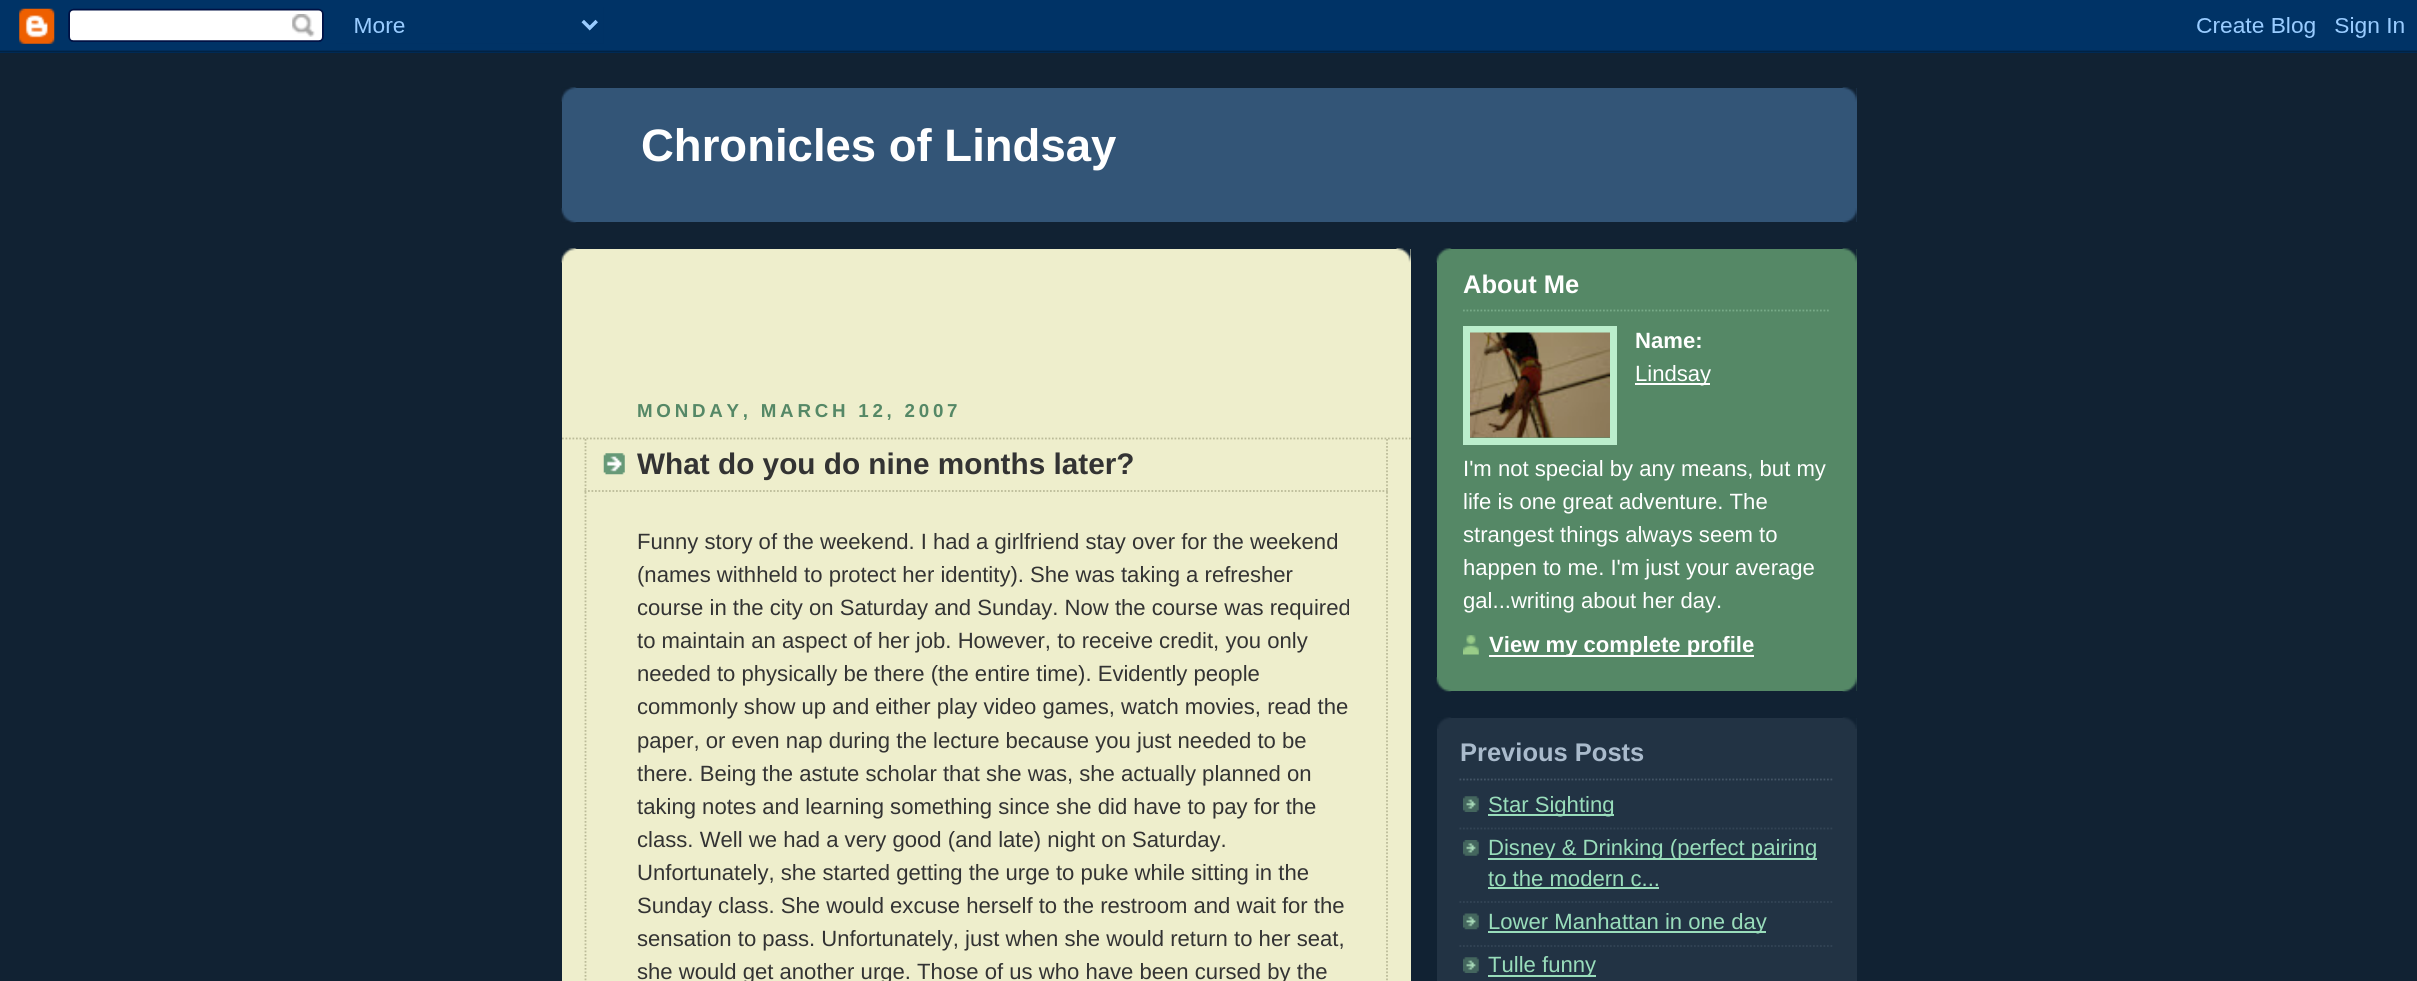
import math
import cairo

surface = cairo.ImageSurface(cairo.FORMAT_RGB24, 2417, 981)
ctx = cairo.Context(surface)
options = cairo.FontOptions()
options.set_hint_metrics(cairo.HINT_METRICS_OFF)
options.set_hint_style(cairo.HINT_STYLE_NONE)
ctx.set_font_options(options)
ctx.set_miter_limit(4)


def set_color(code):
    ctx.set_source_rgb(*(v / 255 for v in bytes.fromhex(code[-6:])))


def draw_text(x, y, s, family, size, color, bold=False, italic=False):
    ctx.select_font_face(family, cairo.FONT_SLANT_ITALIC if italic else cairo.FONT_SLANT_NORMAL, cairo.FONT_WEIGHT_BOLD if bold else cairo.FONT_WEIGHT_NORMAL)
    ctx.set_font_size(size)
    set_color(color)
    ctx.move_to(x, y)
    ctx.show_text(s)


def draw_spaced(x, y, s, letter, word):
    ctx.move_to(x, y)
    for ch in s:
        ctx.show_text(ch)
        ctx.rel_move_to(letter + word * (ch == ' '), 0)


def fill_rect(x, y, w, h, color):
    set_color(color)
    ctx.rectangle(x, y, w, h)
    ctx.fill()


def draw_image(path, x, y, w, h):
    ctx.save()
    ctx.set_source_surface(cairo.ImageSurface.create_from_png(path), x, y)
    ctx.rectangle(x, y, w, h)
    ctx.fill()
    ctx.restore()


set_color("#112233")
ctx.paint()
draw_image("assets/img1.png", 0, 0, 2417, 53)
fill_rect(562, 88, 1295, 134, "#335577")
draw_image("assets/img2.png", 561, 208, 1296, 15)
draw_image("assets/img3.png", 561, 87, 1296, 15)
draw_text(641, 161, "Chronicles of Lindsay", "Liberation Sans", 45.5, "#ffffff", bold=True)
fill_rect(562, 249, 849, 732, "#eeeecc")
draw_image("assets/img4.png", 561, 248, 850, 15)
ctx.set_font_size(18.75)
set_color("#558866")
draw_spaced(637, 417, "MONDAY, MARCH 12, 2007", 3.75, 0)
ctx.new_path()
ctx.move_to(562, 438.5)
ctx.line_to(1410.5, 438.5)
set_color("#bbbb99")
ctx.set_line_width(1.8)
ctx.set_dash([1.75, 1.75])
ctx.stroke()
draw_image("assets/img5.png", 603, 453, 22, 22)
ctx.new_path()
ctx.move_to(1387, 439)
ctx.line_to(1387, 492)
ctx.stroke()
ctx.new_path()
ctx.move_to(584.5, 491)
ctx.line_to(1388, 491)
ctx.stroke()
ctx.new_path()
ctx.move_to(585.5, 439)
ctx.line_to(585.5, 492)
ctx.stroke()
draw_text(637, 474, "What do you do nine months later?", "Liberation Sans", 29.75, "#333333", bold=True)
ctx.new_path()
ctx.move_to(1387, 492)
ctx.line_to(1387, 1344)
set_color("#bbbb99")
ctx.stroke()
ctx.new_path()
ctx.move_to(585.5, 492)
ctx.line_to(585.5, 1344)
ctx.stroke()
draw_text(637, 549, "Funny story of the weekend. I had a girlfriend stay over for the weekend", "Liberation Sans", 22.1, "#333333")
draw_text(637, 582, "(names withheld to protect her identity). She was taking a refresher", "Liberation Sans", 22.1, "#333333")
draw_text(637, 615, "course in the city on Saturday and Sunday. Now the course was required", "Liberation Sans", 22.1, "#333333")
draw_text(637, 648, "to maintain an aspect of her job. However, to receive credit, you only", "Liberation Sans", 22.1, "#333333")
draw_text(637, 681, "needed to physically be there (the entire time). Evidently people", "Liberation Sans", 22.1, "#333333")
draw_text(637, 714, "commonly show up and either play video games, watch movies, read the", "Liberation Sans", 22.1, "#333333")
draw_text(637, 748, "paper, or even nap during the lecture because you just needed to be", "Liberation Sans", 22.1, "#333333")
draw_text(637, 781, "there. Being the astute scholar that she was, she actually planned on", "Liberation Sans", 22.1, "#333333")
draw_text(637, 814, "taking notes and learning something since she did have to pay for the", "Liberation Sans", 22.1, "#333333")
draw_text(637, 847, "class. Well we had a very good (and late) night on Saturday.", "Liberation Sans", 22.1, "#333333")
draw_text(637, 880, "Unfortunately, she started getting the urge to puke while sitting in the", "Liberation Sans", 22.1, "#333333")
draw_text(637, 913, "Sunday class. She would excuse herself to the restroom and wait for the", "Liberation Sans", 22.1, "#333333")
draw_text(637, 946, "sensation to pass. Unfortunately, just when she would return to her seat,", "Liberation Sans", 22.1, "#333333")
draw_text(637, 979, "she would get another urge. Those of us who have been cursed by the", "Liberation Sans", 22.1, "#333333")
fill_rect(1437, 249, 420, 442, "#558866")
draw_image("assets/img6.png", 1436, 677, 421, 15)
draw_image("assets/img7.png", 1436, 248, 421, 15)
draw_text(1463, 293, "About Me", "Liberation Sans", 25.5, "#ffffff", bold=True)
ctx.new_path()
ctx.move_to(1463, 310.5)
ctx.line_to(1830.5, 310.5)
set_color("#77aa88")
ctx.stroke()
ctx.rectangle(1466.5, 329.5, 147, 112)
set_color("#bbeecc")
ctx.set_line_width(7)
ctx.set_dash([])
ctx.stroke()
draw_image("assets/img8.png", 1470, 332, 140, 106)
draw_text(1635, 348, "Name:", "Liberation Sans", 22.1, "#ffffff", bold=True)
fill_rect(1635, 383, 75, 2, "#ffffff")
draw_text(1635, 381, "Lindsay", "Liberation Sans", 22.1, "#ffffff")
draw_text(1463, 476, "I'm not special by any means, but my", "Liberation Sans", 22.1, "#ffffff")
draw_text(1463, 509, "life is one great adventure. The", "Liberation Sans", 22.1, "#ffffff")
draw_text(1463, 542, "strangest things always seem to", "Liberation Sans", 22.1, "#ffffff")
draw_text(1463, 575, "happen to me. I'm just your average", "Liberation Sans", 22.1, "#ffffff")
draw_text(1463, 608, "gal...writing about her day.", "Liberation Sans", 22.1, "#ffffff")
draw_image("assets/img9.png", 1463, 635, 16, 20)
fill_rect(1489, 655, 265, 2, "#ffffff")
draw_text(1489, 652, "View my complete profile", "Liberation Sans", 22.1, "#ffffff", bold=True)
fill_rect(1437, 718, 420, 263, "#223344")
draw_image("assets/img10.png", 1437, 717, 420, 12)
ctx.new_path()
ctx.move_to(1459.5, 779.5)
ctx.line_to(1834, 779.5)
set_color("#445566")
ctx.set_line_width(1.8)
ctx.set_dash([1.75, 1.75])
ctx.stroke()
draw_text(1460, 761, "Previous Posts", "Liberation Sans", 25.5, "#aabbcc", bold=True)
draw_image("assets/img11.png", 1463, 796, 16, 16)
ctx.new_path()
ctx.move_to(1459.5, 828.5)
ctx.line_to(1834, 828.5)
set_color("#334455")
ctx.stroke()
fill_rect(1488, 814, 126, 2, "#99ddbb")
draw_text(1488, 812, "Star Sighting", "Liberation Sans", 22.1, "#99ddbb")
draw_image("assets/img12.png", 1463, 840, 16, 16)
ctx.new_path()
ctx.move_to(1459.5, 902)
ctx.line_to(1834, 902)
set_color("#334455")
ctx.stroke()
fill_rect(1488, 858, 329, 2, "#99ddbb")
draw_text(1488, 855, "Disney & Drinking (perfect pairing", "Liberation Sans", 22.1, "#99ddbb")
draw_text(1488, 886, "to the modern c...", "Liberation Sans", 22.1, "#99ddbb")
fill_rect(1488, 887, 171, 2, "#99ddbb")
draw_image("assets/img13.png", 1463, 913, 16, 17)
ctx.new_path()
ctx.move_to(1459.5, 946)
ctx.line_to(1834, 946)
set_color("#334455")
ctx.stroke()
fill_rect(1488, 931, 278, 2, "#99ddbb")
draw_text(1488, 929, "Lower Manhattan in one day", "Liberation Sans", 22.1, "#99ddbb")
draw_image("assets/img11.png", 1463, 957, 16, 16)
fill_rect(1488, 975, 108, 2, "#99ddbb")
draw_text(1488, 972, "Tulle funny", "Liberation Sans", 22.1, "#99ddbb")
surface.write_to_png("output.png")
